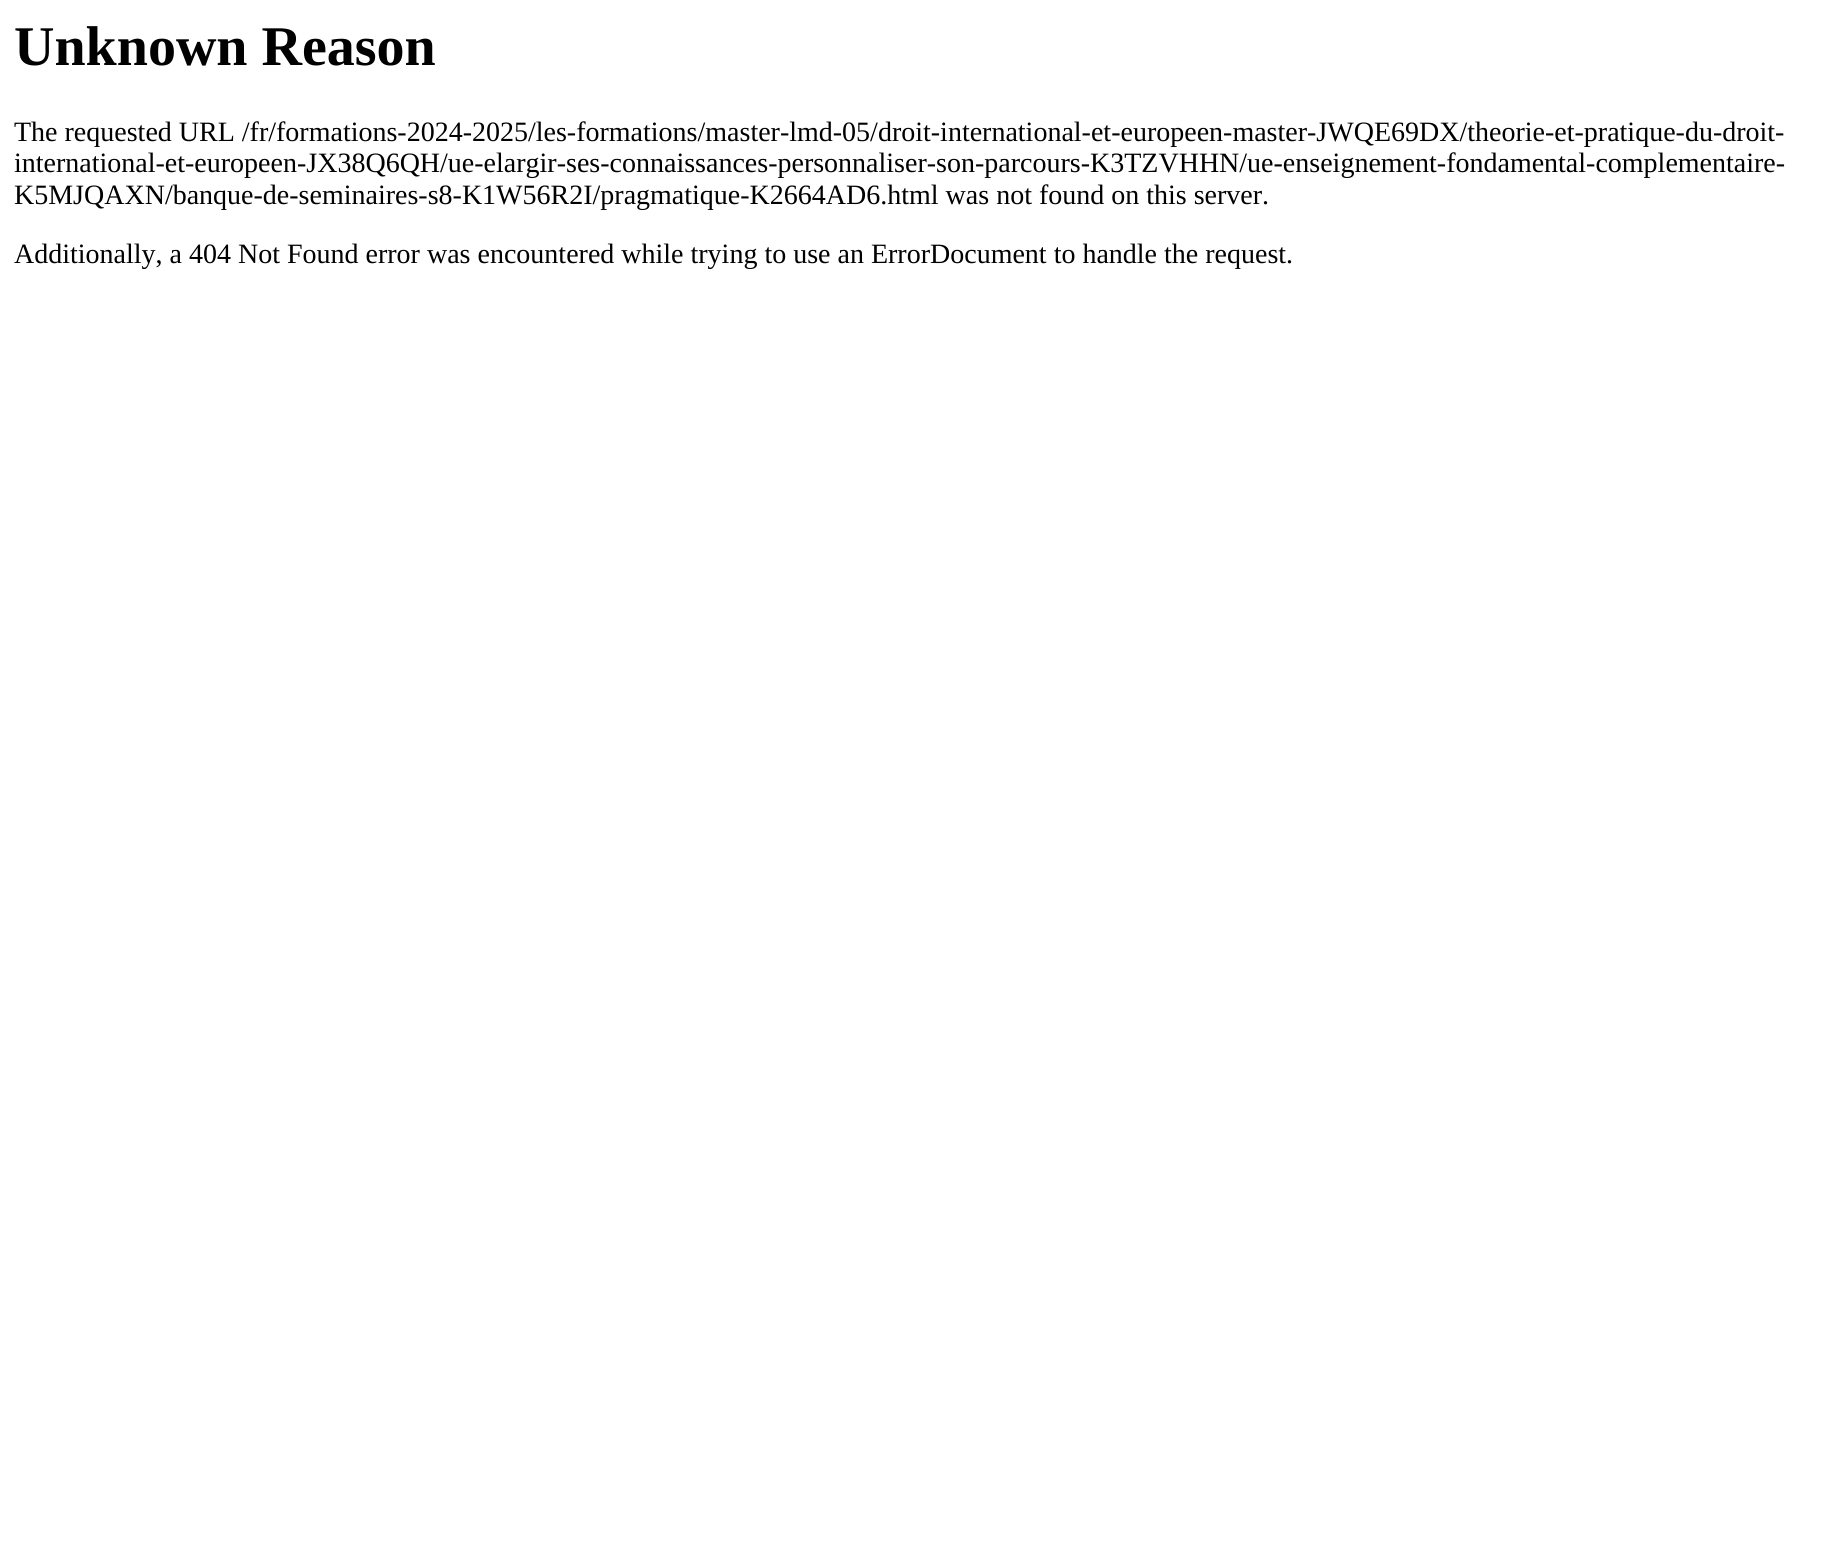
import math
import cairo

surface = cairo.ImageSurface(cairo.FORMAT_RGB24, 1828, 1555)
ctx = cairo.Context(surface)
options = cairo.FontOptions()
options.set_hint_metrics(cairo.HINT_METRICS_OFF)
options.set_hint_style(cairo.HINT_STYLE_NONE)
ctx.set_font_options(options)
ctx.set_miter_limit(4)


def set_color(code):
    ctx.set_source_rgb(*(v / 255 for v in bytes.fromhex(code[-6:])))


def draw_text(x, y, s, family, size, color, bold=False, italic=False):
    ctx.select_font_face(family, cairo.FONT_SLANT_ITALIC if italic else cairo.FONT_SLANT_NORMAL, cairo.FONT_WEIGHT_BOLD if bold else cairo.FONT_WEIGHT_NORMAL)
    ctx.set_font_size(size)
    set_color(color)
    ctx.move_to(x, y)
    ctx.show_text(s)


set_color("#ffffff")
ctx.paint()
draw_text(14, 65, "Unknown Reason", "Liberation Serif", 56, "#000000", bold=True)
draw_text(14, 141, "The requested URL /fr/formations-2024-2025/les-formations/master-lmd-05/droit-international-et-europeen-master-JWQE69DX/theorie-et-pratique-du-droit-", "Liberation Serif", 28, "#000000")
draw_text(14, 172, "international-et-europeen-JX38Q6QH/ue-elargir-ses-connaissances-personnaliser-son-parcours-K3TZVHHN/ue-enseignement-fondamental-complementaire-", "Liberation Serif", 28, "#000000")
draw_text(14, 204, "K5MJQAXN/banque-de-seminaires-s8-K1W56R2I/pragmatique-K2664AD6.html was not found on this server.", "Liberation Serif", 28, "#000000")
draw_text(14, 263, "Additionally, a 404 Not Found error was encountered while trying to use an ErrorDocument to handle the request.", "Liberation Serif", 28, "#000000")
surface.write_to_png("output.png")
